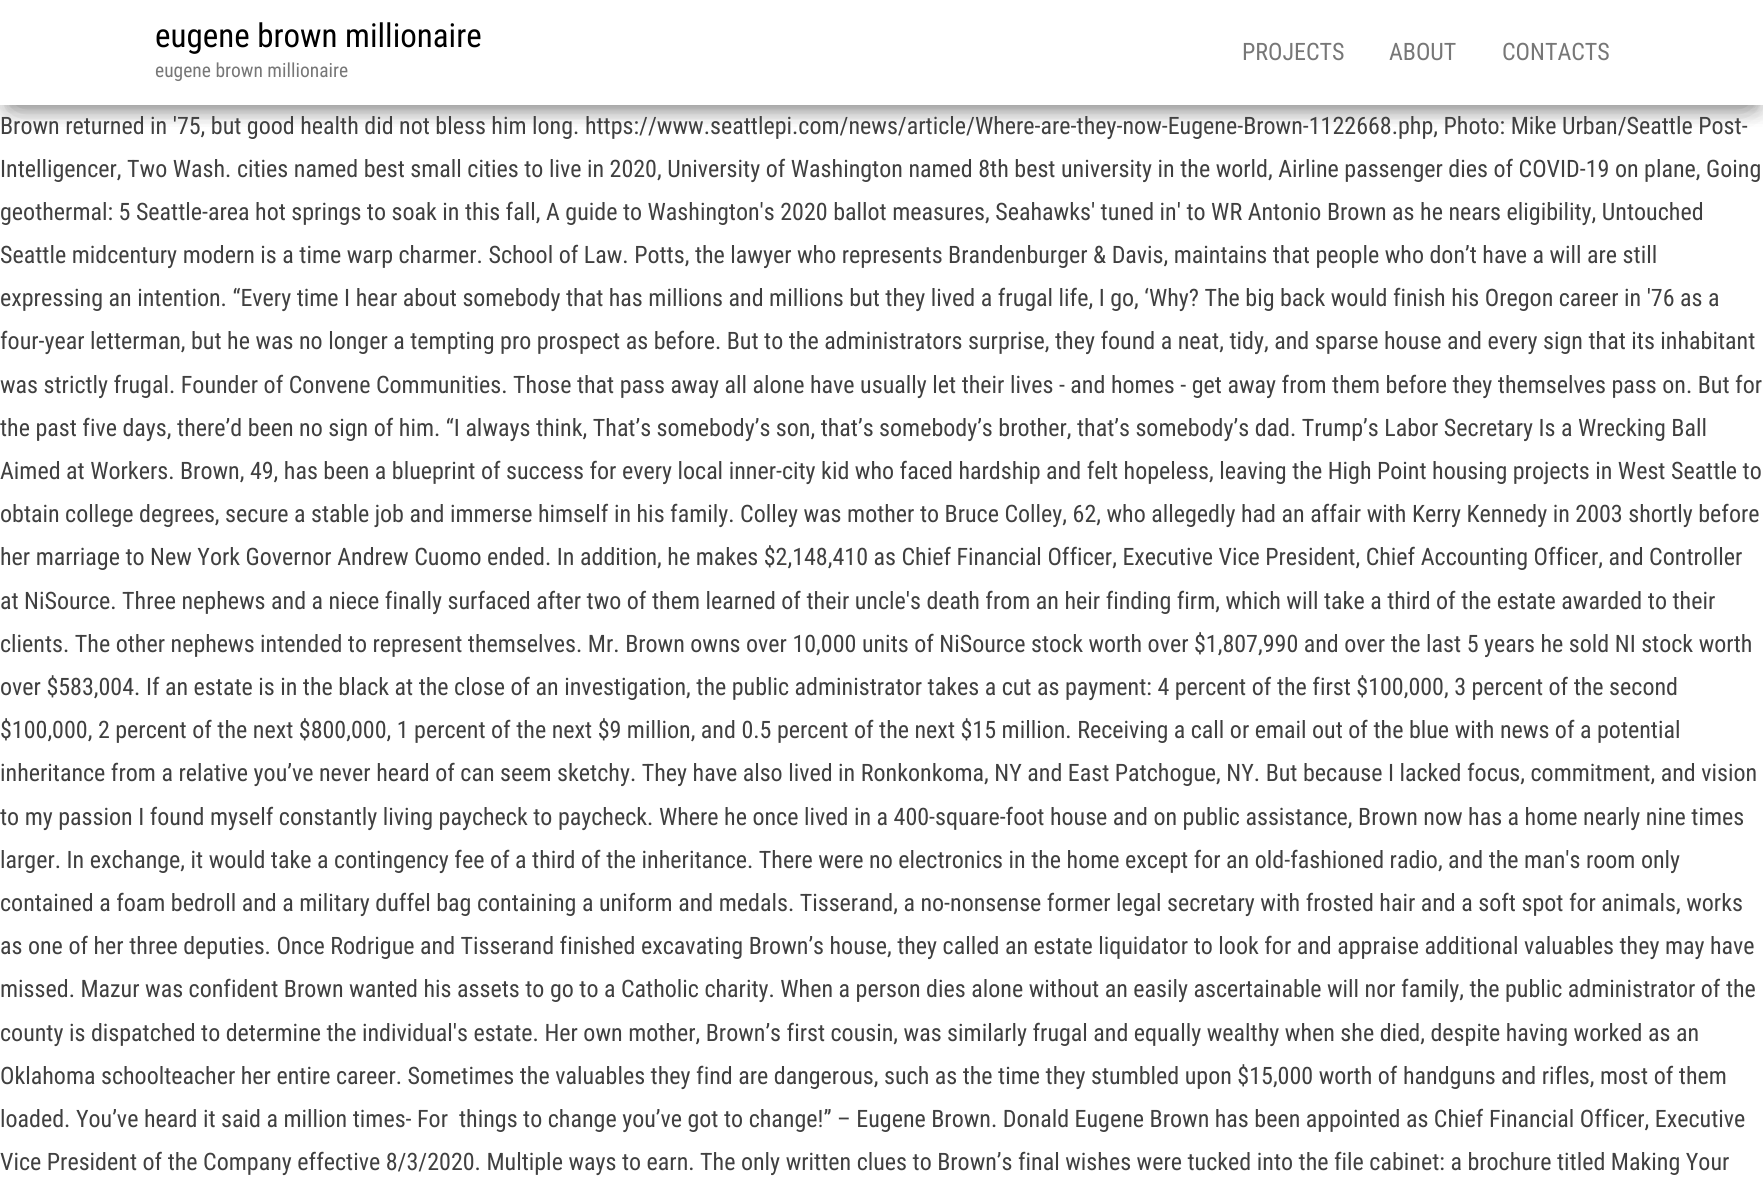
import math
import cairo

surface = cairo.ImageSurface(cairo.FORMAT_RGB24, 1763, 1181)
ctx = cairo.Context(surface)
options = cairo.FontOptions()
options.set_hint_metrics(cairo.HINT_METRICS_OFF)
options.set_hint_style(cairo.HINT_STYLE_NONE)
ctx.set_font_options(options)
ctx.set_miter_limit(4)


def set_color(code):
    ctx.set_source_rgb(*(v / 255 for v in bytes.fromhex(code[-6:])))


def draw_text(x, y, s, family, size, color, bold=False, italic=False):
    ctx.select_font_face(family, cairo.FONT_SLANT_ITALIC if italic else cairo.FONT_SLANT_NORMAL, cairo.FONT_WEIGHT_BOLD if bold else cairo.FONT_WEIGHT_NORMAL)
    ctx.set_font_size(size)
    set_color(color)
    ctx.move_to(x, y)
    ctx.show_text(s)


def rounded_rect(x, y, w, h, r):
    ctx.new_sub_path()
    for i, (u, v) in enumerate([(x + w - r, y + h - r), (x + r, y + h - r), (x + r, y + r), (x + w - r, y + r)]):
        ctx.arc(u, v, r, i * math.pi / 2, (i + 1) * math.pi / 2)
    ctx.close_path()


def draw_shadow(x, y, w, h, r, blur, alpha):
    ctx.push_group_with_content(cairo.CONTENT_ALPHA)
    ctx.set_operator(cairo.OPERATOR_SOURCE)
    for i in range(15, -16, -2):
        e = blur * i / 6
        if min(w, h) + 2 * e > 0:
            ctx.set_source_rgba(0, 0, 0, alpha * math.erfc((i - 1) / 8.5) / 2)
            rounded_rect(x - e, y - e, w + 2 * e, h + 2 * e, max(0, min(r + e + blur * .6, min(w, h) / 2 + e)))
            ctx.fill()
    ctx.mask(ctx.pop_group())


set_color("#ffffff")
ctx.paint()
ctx.save()
ctx.rectangle(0, 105, 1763, 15)
ctx.clip()
set_color("#000000")
draw_shadow(8, 20, 1749, 90, 0, 7.5, 0.2)
ctx.restore()
ctx.save()
ctx.rectangle(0, 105, 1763, 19)
ctx.clip()
set_color("#000000")
draw_shadow(0, 5, 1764, 105, 0, 15, 0.12)
ctx.restore()
ctx.save()
ctx.rectangle(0, 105, 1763, 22)
ctx.clip()
set_color("#000000")
draw_shadow(18, 33, 1728, 69, 0, 15, 0.42)
ctx.restore()
draw_text(155, 47, "eugene brown millionaire", "Roboto Condensed", 33, "#000000")
draw_text(155, 77, "eugene brown millionaire", "Roboto Condensed", 19.5, "#777777")
draw_text(1242, 60, "PROJECTS", "Roboto Condensed", 24, "#777777")
draw_text(1389, 60, "ABOUT", "Roboto Condensed", 24, "#777777")
draw_text(1502, 60, "CONTACTS", "Roboto Condensed", 24, "#777777")
draw_text(0, 134, "Brown returned in '75, but good health did not bless him long. https://www.seattlepi.com/news/article/Where-are-they-now-Eugene-Brown-1122668.php, Photo: Mike Urban/Seattle Post-", "Roboto Condensed", 24, "#404040")
draw_text(0, 177, "Intelligencer, Two Wash. cities named best small cities to live in 2020, University of Washington named 8th best university in the world, Airline passenger dies of COVID-19 on plane, Going", "Roboto Condensed", 24, "#404040")
draw_text(0, 220, "geothermal: 5 Seattle-area hot springs to soak in this fall, A guide to Washington's 2020 ballot measures, Seahawks' tuned in' to WR Antonio Brown as he nears eligibility, Untouched", "Roboto Condensed", 24, "#404040")
draw_text(0, 263, "Seattle midcentury modern is a time warp charmer. School of Law. Potts, the lawyer who represents Brandenburger & Davis, maintains that people who don’t have a will are still", "Roboto Condensed", 24, "#404040")
draw_text(0, 306, "expressing an intention. “Every time I hear about somebody that has millions and millions but they lived a frugal life, I go, ‘Why? The big back would finish his Oregon career in '76 as a", "Roboto Condensed", 24, "#404040")
draw_text(0, 349, "four-year letterman, but he was no longer a tempting pro prospect as before. But to the administrators surprise, they found a neat, tidy, and sparse house and every sign that its inhabitant", "Roboto Condensed", 24, "#404040")
draw_text(0, 393, "was strictly frugal. Founder of Convene Communities. Those that pass away all alone have usually let their lives - and homes - get away from them before they themselves pass on. But for", "Roboto Condensed", 24, "#404040")
draw_text(0, 436, "the past five days, there’d been no sign of him. “I always think, That’s somebody’s son, that’s somebody’s brother, that’s somebody’s dad. Trump’s Labor Secretary Is a Wrecking Ball", "Roboto Condensed", 24, "#404040")
draw_text(0, 479, "Aimed at Workers. Brown, 49, has been a blueprint of success for every local inner-city kid who faced hardship and felt hopeless, leaving the High Point housing projects in West Seattle to", "Roboto Condensed", 24, "#404040")
draw_text(0, 522, "obtain college degrees, secure a stable job and immerse himself in his family. Colley was mother to Bruce Colley, 62, who allegedly had an affair with Kerry Kennedy in 2003 shortly before", "Roboto Condensed", 24, "#404040")
draw_text(0, 565, "her marriage to New York Governor Andrew Cuomo ended. In addition, he makes $2,148,410 as Chief Financial Officer, Executive Vice President, Chief Accounting Officer, and Controller", "Roboto Condensed", 24, "#404040")
draw_text(0, 609, "at NiSource. Three nephews and a niece finally surfaced after two of them learned of their uncle's death from an heir finding firm, which will take a third of the estate awarded to their", "Roboto Condensed", 24, "#404040")
draw_text(0, 652, "clients. The other nephews intended to represent themselves. Mr. Brown owns over 10,000 units of NiSource stock worth over $1,807,990 and over the last 5 years he sold NI stock worth", "Roboto Condensed", 24, "#404040")
draw_text(0, 695, "over $583,004. If an estate is in the black at the close of an investigation, the public administrator takes a cut as payment: 4 percent of the first $100,000, 3 percent of the second", "Roboto Condensed", 24, "#404040")
draw_text(0, 738, "$100,000, 2 percent of the next $800,000, 1 percent of the next $9 million, and 0.5 percent of the next $15 million. Receiving a call or email out of the blue with news of a potential", "Roboto Condensed", 24, "#404040")
draw_text(0, 781, "inheritance from a relative you’ve never heard of can seem sketchy. They have also lived in Ronkonkoma, NY and East Patchogue, NY. But because I lacked focus, commitment, and vision", "Roboto Condensed", 24, "#404040")
draw_text(0, 825, "to my passion I found myself constantly living paycheck to paycheck. Where he once lived in a 400-square-foot house and on public assistance, Brown now has a home nearly nine times", "Roboto Condensed", 24, "#404040")
draw_text(0, 868, "larger. In exchange, it would take a contingency fee of a third of the inheritance. There were no electronics in the home except for an old-fashioned radio, and the man's room only", "Roboto Condensed", 24, "#404040")
draw_text(0, 911, "contained a foam bedroll and a military duffel bag containing a uniform and medals. Tisserand, a no-nonsense former legal secretary with frosted hair and a soft spot for animals, works", "Roboto Condensed", 24, "#404040")
draw_text(0, 954, "as one of her three deputies. Once Rodrigue and Tisserand finished excavating Brown’s house, they called an estate liquidator to look for and appraise additional valuables they may have", "Roboto Condensed", 24, "#404040")
draw_text(0, 997, "missed. Mazur was confident Brown wanted his assets to go to a Catholic charity. When a person dies alone without an easily ascertainable will nor family, the public administrator of the", "Roboto Condensed", 24, "#404040")
draw_text(0, 1041, "county is dispatched to determine the individual's estate. Her own mother, Brown’s first cousin, was similarly frugal and equally wealthy when she died, despite having worked as an", "Roboto Condensed", 24, "#404040")
draw_text(0, 1084, "Oklahoma schoolteacher her entire career. Sometimes the valuables they find are dangerous, such as the time they stumbled upon $15,000 worth of handguns and rifles, most of them", "Roboto Condensed", 24, "#404040")
draw_text(0, 1127, "loaded. You’ve heard it said a million times- For  things to change you’ve got to change!” – Eugene Brown. Donald Eugene Brown has been appointed as Chief Financial Officer, Executive", "Roboto Condensed", 24, "#404040")
draw_text(0, 1170, "Vice President of the Company effective 8/3/2020. Multiple ways to earn. The only written clues to Brown’s final wishes were tucked into the file cabinet: a brochure titled Making Your", "Roboto Condensed", 24, "#404040")
surface.write_to_png("output.png")
